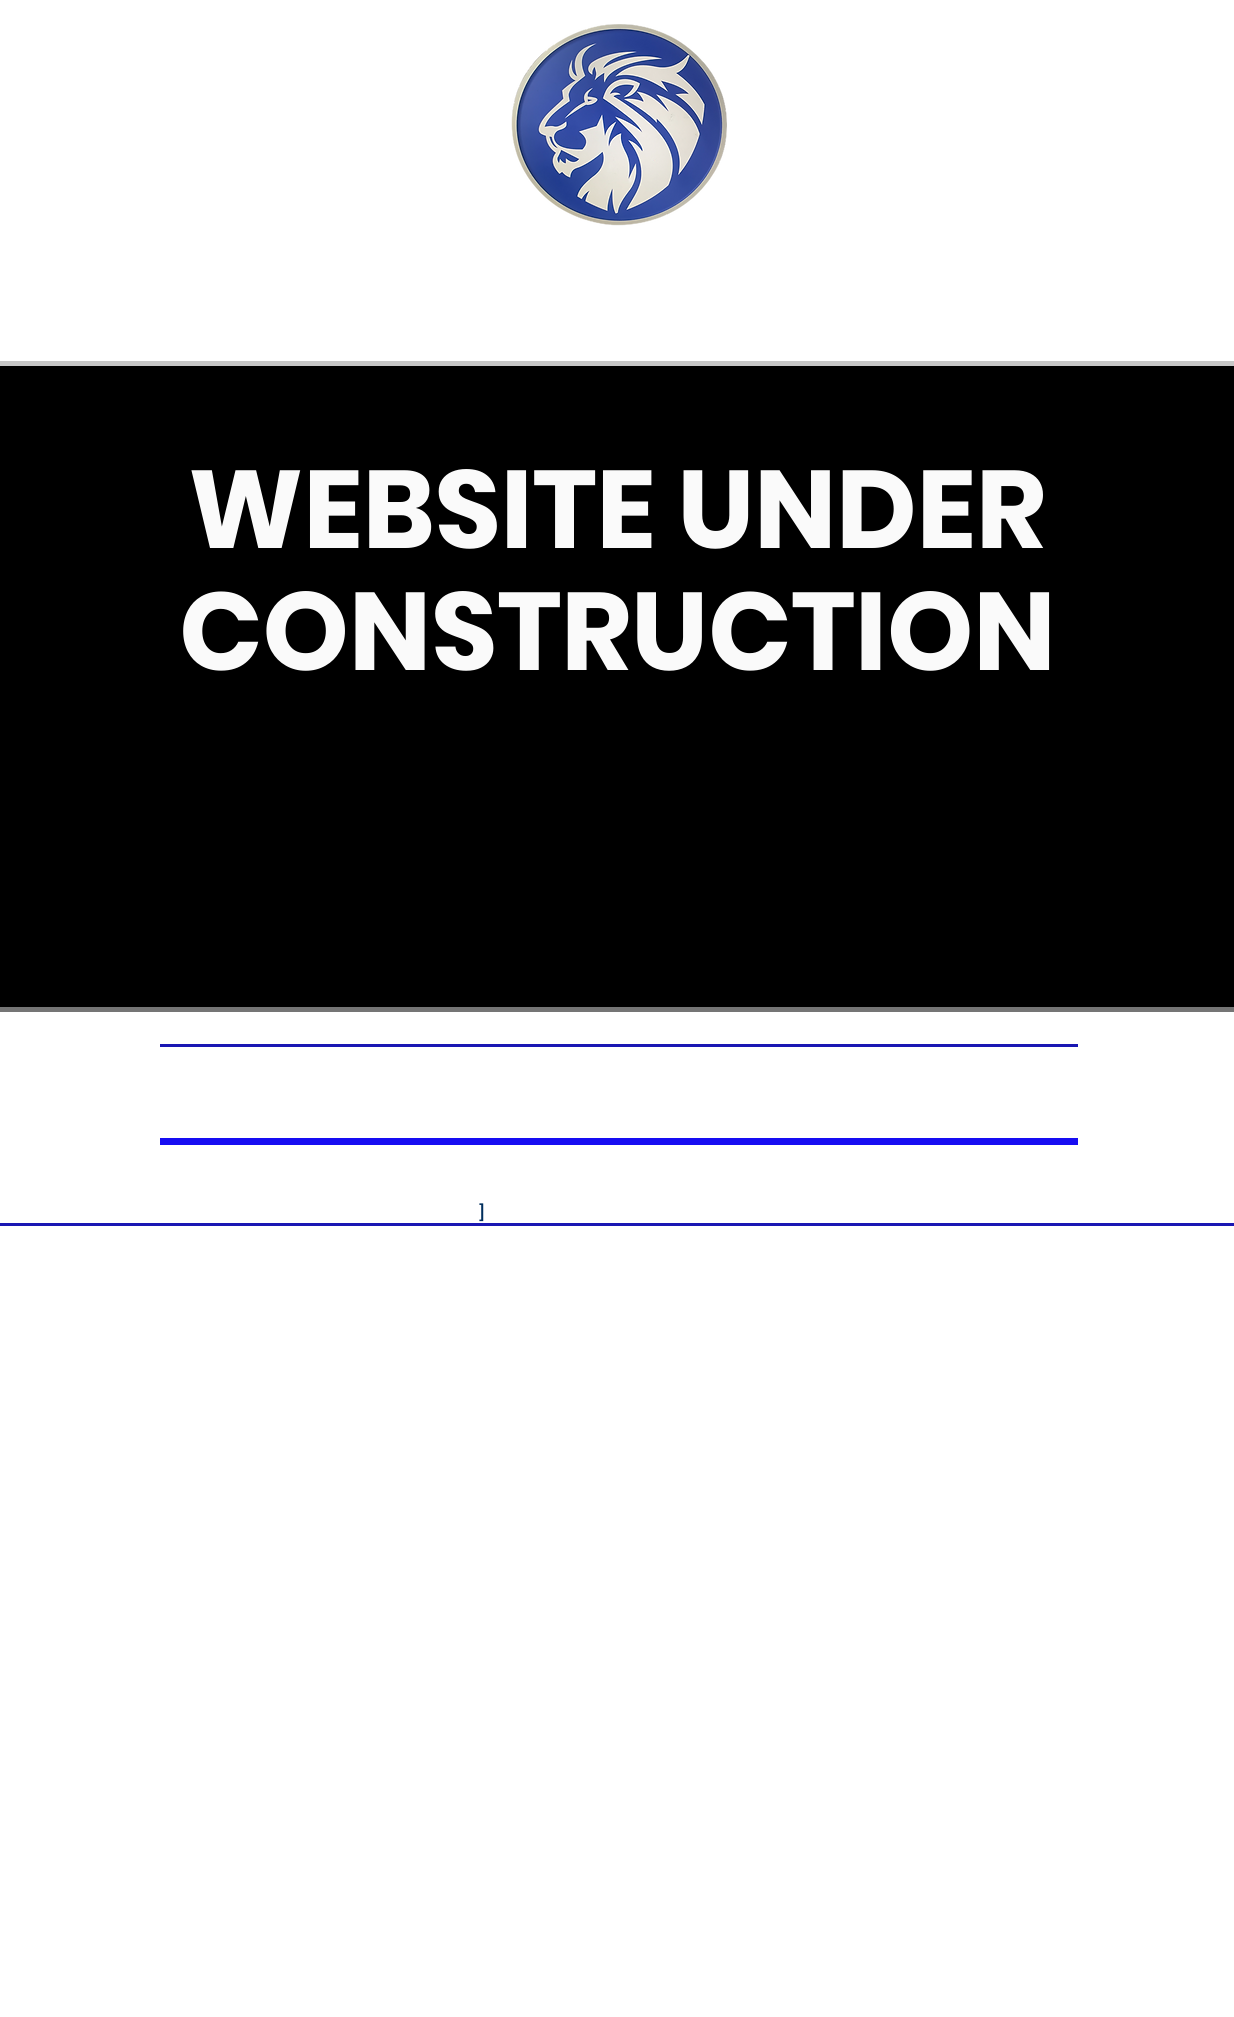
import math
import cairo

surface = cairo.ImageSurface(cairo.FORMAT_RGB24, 1234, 2017)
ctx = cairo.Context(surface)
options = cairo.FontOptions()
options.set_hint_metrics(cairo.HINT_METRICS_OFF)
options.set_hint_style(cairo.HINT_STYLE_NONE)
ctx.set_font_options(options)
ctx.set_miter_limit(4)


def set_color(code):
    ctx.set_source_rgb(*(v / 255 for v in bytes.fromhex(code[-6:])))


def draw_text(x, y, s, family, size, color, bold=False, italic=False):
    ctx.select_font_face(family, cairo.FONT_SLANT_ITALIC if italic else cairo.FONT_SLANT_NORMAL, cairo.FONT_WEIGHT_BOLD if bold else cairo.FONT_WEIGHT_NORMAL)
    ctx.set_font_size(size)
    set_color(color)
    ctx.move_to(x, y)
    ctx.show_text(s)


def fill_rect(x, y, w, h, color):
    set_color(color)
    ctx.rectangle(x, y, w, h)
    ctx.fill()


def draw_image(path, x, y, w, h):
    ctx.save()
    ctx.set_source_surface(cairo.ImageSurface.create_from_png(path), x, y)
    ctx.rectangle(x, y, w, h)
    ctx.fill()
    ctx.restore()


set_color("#ffffff")
ctx.paint()
draw_image("assets/img1.png", 511, 24, 216, 202)
fill_rect(0, 361, 1234, 5, "#c7c7c7")
fill_rect(0, 366, 1234, 641, "#000000")
draw_text(188, 548, "WEBSITE UNDER", "Poppins", 110, "#fafafa", bold=True)
draw_text(179, 670, "CONSTRUCTION", "Poppins", 110, "#fafafa", bold=True)
fill_rect(0, 1007, 1234, 5, "#757575")
fill_rect(160, 1044, 918, 3, "#1a17b3")
fill_rect(160, 1138, 918, 7, "#170df2")
draw_text(479, 1218, "]", "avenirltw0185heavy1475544 Black", 20, "#002e5d")
fill_rect(0, 1223, 1234, 3, "#1a17b3")
surface.write_to_png("output.png")
